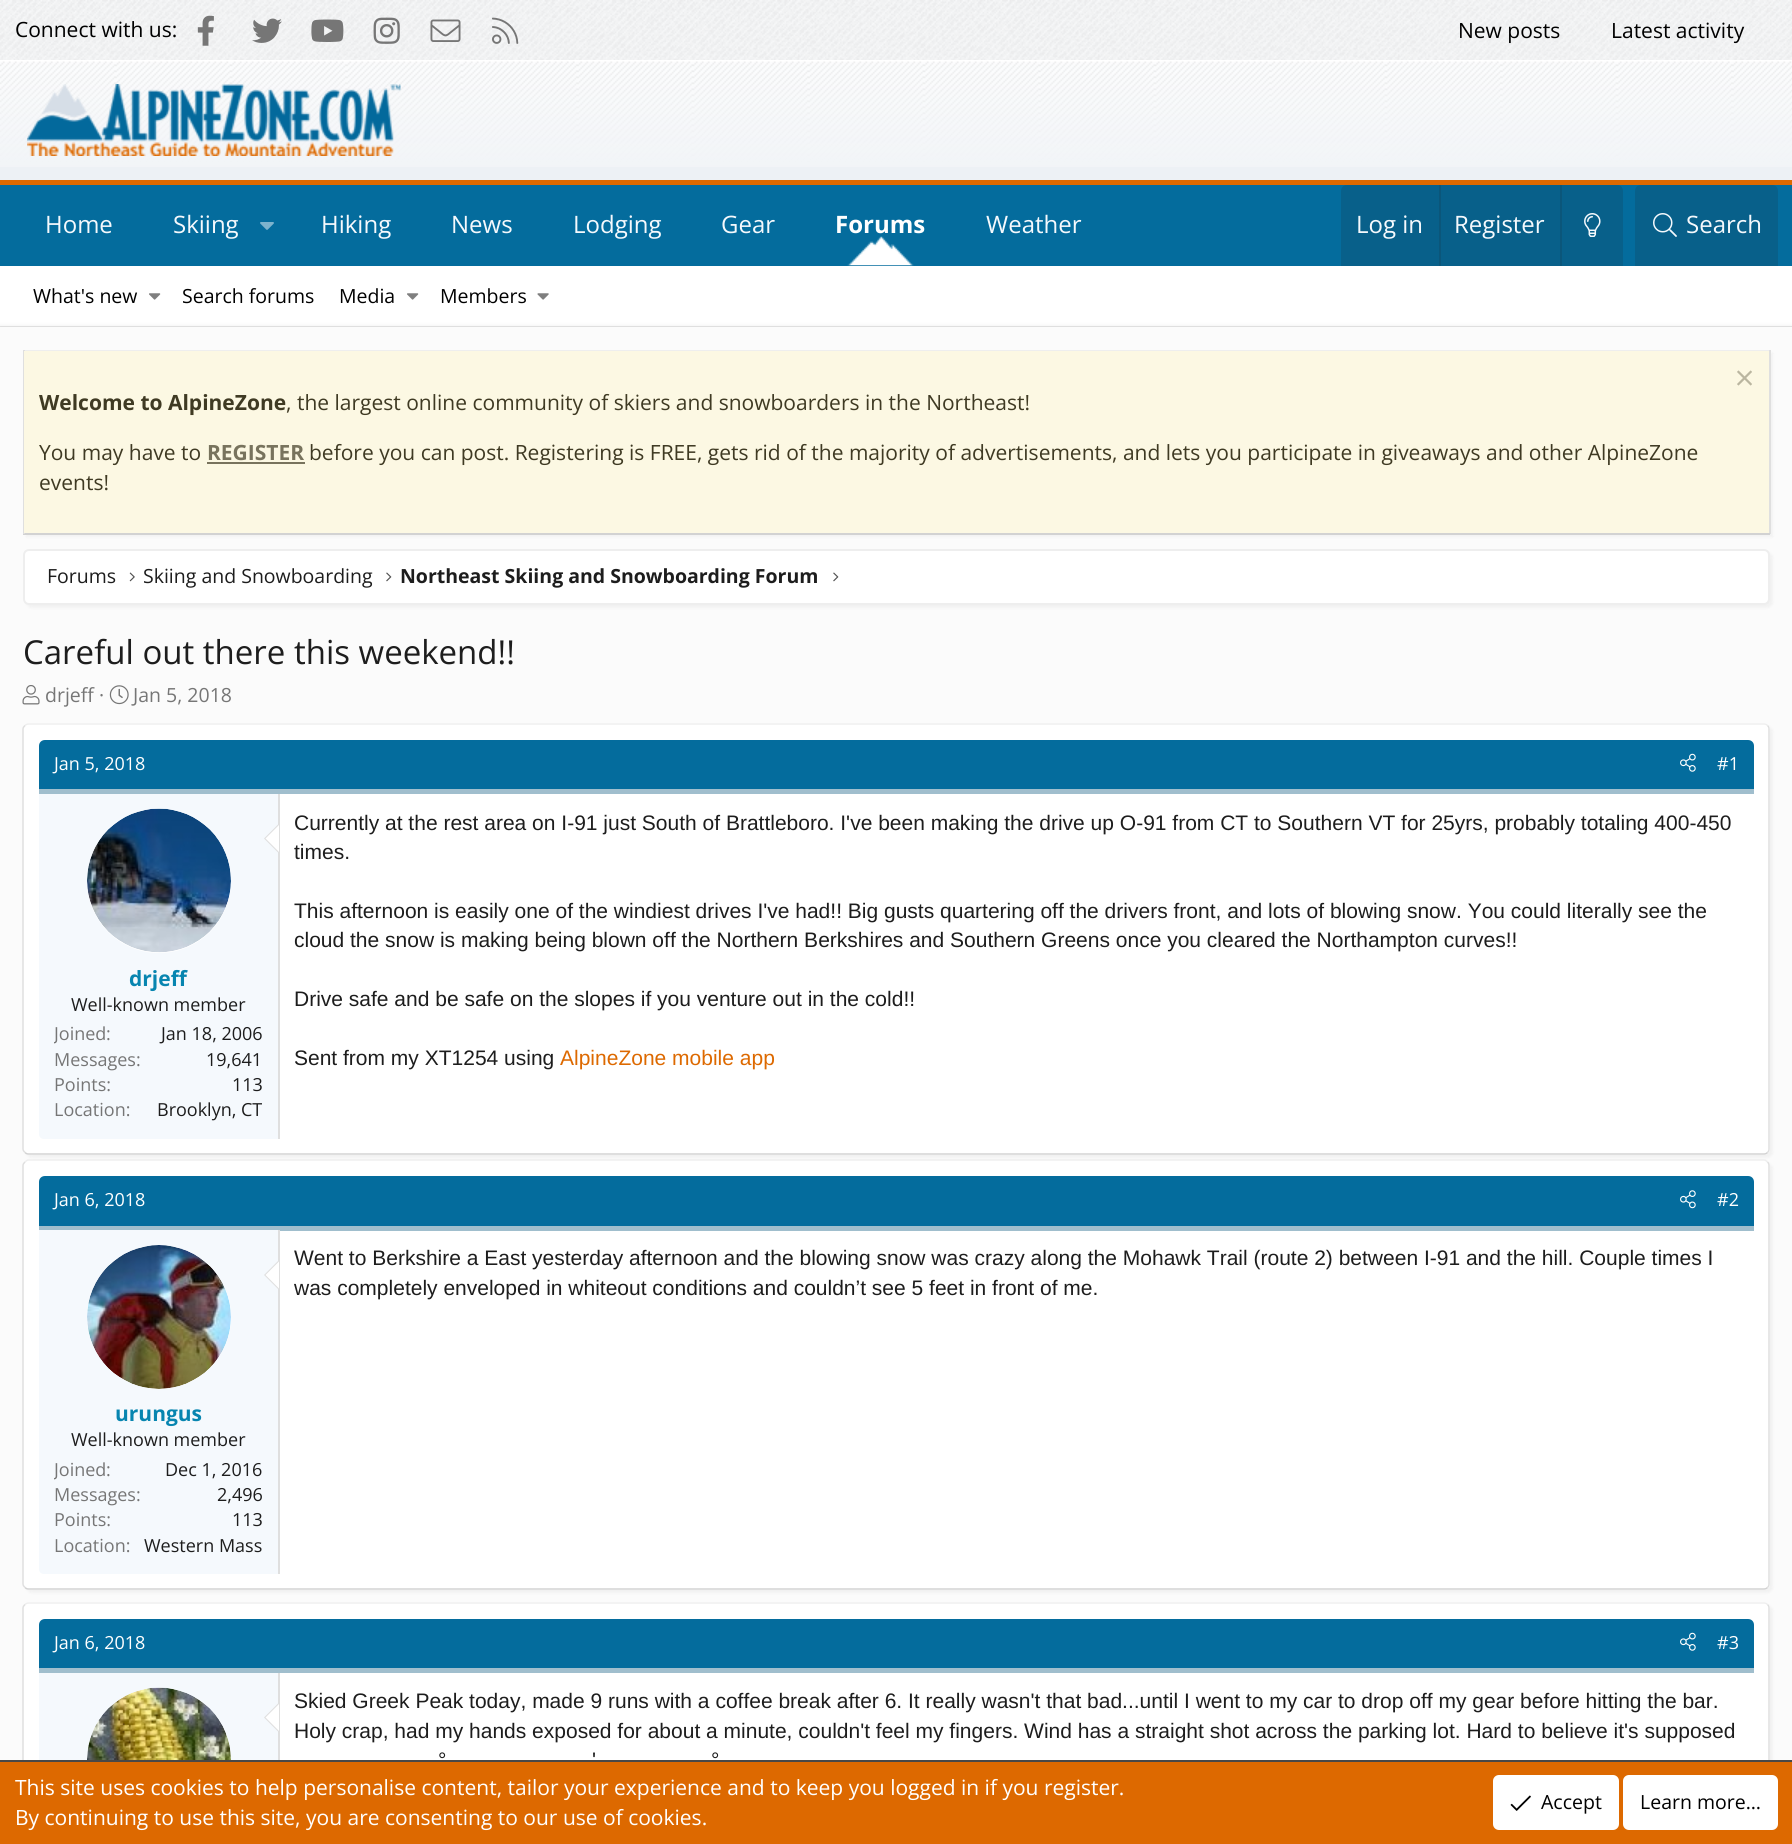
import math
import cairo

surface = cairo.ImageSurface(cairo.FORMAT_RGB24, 1792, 1844)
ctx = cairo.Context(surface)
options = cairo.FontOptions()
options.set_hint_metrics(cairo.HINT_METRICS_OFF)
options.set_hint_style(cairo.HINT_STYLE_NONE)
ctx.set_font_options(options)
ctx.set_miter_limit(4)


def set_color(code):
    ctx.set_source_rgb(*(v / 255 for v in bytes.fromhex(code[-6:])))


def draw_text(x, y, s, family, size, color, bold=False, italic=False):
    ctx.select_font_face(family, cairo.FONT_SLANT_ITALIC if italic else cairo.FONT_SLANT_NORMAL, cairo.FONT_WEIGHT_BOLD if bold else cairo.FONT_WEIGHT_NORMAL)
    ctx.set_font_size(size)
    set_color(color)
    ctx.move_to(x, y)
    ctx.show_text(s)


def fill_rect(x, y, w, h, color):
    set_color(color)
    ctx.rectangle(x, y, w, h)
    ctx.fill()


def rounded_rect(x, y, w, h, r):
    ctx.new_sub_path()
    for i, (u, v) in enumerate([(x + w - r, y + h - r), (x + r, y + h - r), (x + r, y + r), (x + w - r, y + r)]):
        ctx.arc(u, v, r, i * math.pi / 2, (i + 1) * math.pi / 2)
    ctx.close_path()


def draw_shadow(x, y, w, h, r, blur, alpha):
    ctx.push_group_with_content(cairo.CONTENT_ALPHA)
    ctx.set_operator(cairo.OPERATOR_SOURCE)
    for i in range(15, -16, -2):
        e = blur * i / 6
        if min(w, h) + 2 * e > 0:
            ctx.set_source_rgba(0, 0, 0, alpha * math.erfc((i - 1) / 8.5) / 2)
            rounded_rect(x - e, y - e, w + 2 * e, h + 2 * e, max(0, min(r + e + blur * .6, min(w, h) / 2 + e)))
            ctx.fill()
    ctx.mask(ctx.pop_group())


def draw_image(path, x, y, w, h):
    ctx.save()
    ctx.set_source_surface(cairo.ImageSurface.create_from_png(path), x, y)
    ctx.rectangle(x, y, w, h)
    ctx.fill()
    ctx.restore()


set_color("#f8f9fa")
ctx.paint()
draw_image("assets/img1.png", 0, 0, 1792, 60)
draw_text(15, 37, "Connect with us:", "Open Sans", 21, "#000000")
draw_image("assets/img2.png", 197, 15, 17, 31)
draw_image("assets/img3.png", 252, 18, 30, 25)
draw_image("assets/img4.png", 311, 19, 33, 23)
draw_image("assets/img5.png", 373, 17, 27, 27)
draw_image("assets/img6.png", 430, 19, 31, 23)
draw_image("assets/img7.png", 492, 17, 27, 27)
draw_text(1458, 38, "New posts", "Open Sans", 21, "#000000")
draw_text(1611, 38, "Latest activity", "Open Sans", 21, "#000000")
fill_rect(0, 167, 1792, 13, "#edf1f5")
draw_image("assets/img8.png", 0, 60, 1792, 107)
fill_rect(0, 180, 1792, 5, "#dd6900")
draw_image("assets/img9.png", 27, 84, 374, 72)
fill_rect(0, 185, 1792, 81, "#046c9d")
draw_text(45, 233, "Home", "Open Sans", 24, "#f5f9fd")
draw_text(173, 233, "Skiing", "Open Sans", 24, "#f5f9fd")
draw_image("assets/img10.png", 260, 222, 14, 8)
draw_text(321, 233, "Hiking", "Open Sans", 24, "#f5f9fd")
draw_text(451, 233, "News", "Open Sans", 24, "#f5f9fd")
draw_text(573, 233, "Lodging", "Open Sans", 24, "#f5f9fd")
draw_text(721, 233, "Gear", "Open Sans", 24, "#f5f9fd")
draw_image("assets/img11.png", 847, 236, 67, 30)
draw_text(835, 233, "Forums", "Open Sans", 24, "#ffffff", bold=True)
draw_text(986, 233, "Weather", "Open Sans", 24, "#f5f9fd")
set_color("#08608a")
ctx.new_path()
ctx.move_to(1347, 185)
ctx.line_to(1617, 185)
ctx.curve_to(1620.5, 185, 1623, 187.5, 1623, 191)
ctx.line_to(1623, 266)
ctx.line_to(1341, 266)
ctx.line_to(1341, 191)
ctx.curve_to(1341, 187.5, 1343.5, 185, 1347, 185)
ctx.close_path()
ctx.fill()
draw_text(1356, 233, "Log in", "Open Sans", 24, "#f5f9fd")
fill_rect(1439, 185, 2, 81, "#0b567a")
draw_text(1454, 233, "Register", "Open Sans", 24, "#f5f9fd")
fill_rect(1560, 185, 2, 81, "#0b567a")
draw_image("assets/img12.png", 1584, 213, 17, 24)
set_color("#08608a")
ctx.new_path()
ctx.move_to(1641, 185)
ctx.line_to(1772, 185)
ctx.curve_to(1775.5, 185, 1778, 187.5, 1778, 191)
ctx.line_to(1778, 266)
ctx.line_to(1635, 266)
ctx.line_to(1635, 191)
ctx.curve_to(1635, 187.5, 1637.5, 185, 1641, 185)
ctx.close_path()
ctx.fill()
draw_image("assets/img13.png", 1653, 213, 24, 24)
draw_text(1686, 233, "Search", "Open Sans", 24, "#f5f9fd")
fill_rect(0, 266, 1792, 60, "#ffffff")
fill_rect(0, 326, 1792, 1, "#e6e6e6")
draw_text(33, 303, "What's new", "Open Sans", 19.5, "#000000")
draw_image("assets/img14.png", 149, 293, 12, 7)
draw_text(182, 303, "Search forums", "Open Sans", 19.5, "#000000")
draw_text(339, 303, "Media", "Open Sans", 19.5, "#000000")
draw_image("assets/img14.png", 407, 293, 12, 7)
draw_text(440, 303, "Members", "Open Sans", 19.5, "#000000")
draw_image("assets/img15.png", 537, 293, 12, 7)
set_color("#c2c2c2")
draw_shadow(0, 329, 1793, 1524, 0, 3, 1)
fill_rect(0, 327, 1792, 1433, "#fbfbfb")
set_color("#000000")
draw_shadow(26, 353, 1747, 184, 0, 1.5, 0.04)
fill_rect(23, 350, 1747, 1, "#eeeeee")
fill_rect(1769, 350, 2, 184, "#dfdfdf")
fill_rect(23, 533, 1747, 2, "#d2d2d2")
fill_rect(23, 350, 2, 184, "#dfdfdf")
fill_rect(24, 351, 1745, 182, "#fcf8e3")
draw_image("assets/img16.png", 1737, 370, 15, 16)
draw_text(39, 410, "Welcome to AlpineZone", "Open Sans", 21, "#3f3a23", bold=True)
draw_text(286, 410, ", the largest online community of skiers and snowboarders in the Northeast!", "Open Sans", 21, "#3f3a23")
draw_text(39, 460, "You may have to", "Open Sans", 21, "#3f3a23")
draw_text(207, 460, "REGISTER", "Open Sans", 21, "#78735d", bold=True)
fill_rect(207, 462, 98, 2, "#78735d")
draw_text(309, 460, "before you can post. Registering is FREE, gets rid of the majority of advertisements, and lets you participate in giveaways and other AlpineZone", "Open Sans", 21, "#3f3a23")
draw_text(39, 490, "events!", "Open Sans", 21, "#3f3a23")
set_color("#000000")
draw_shadow(26, 552, 1747, 56, 6, 1.5, 0.04)
set_color("#ffffff")
rounded_rect(24, 550, 1745, 54, 5)
ctx.fill_preserve()
set_color("#eeeeee")
ctx.stroke()
draw_text(47, 583, "Forums", "Open Sans", 19.5, "#1d1d1d")
draw_image("assets/img17.png", 129, 572, 6, 10)
draw_text(143, 583, "Skiing and Snowboarding", "Open Sans", 19.5, "#1d1d1d")
draw_image("assets/img18.png", 386, 572, 6, 10)
draw_text(400, 583, "Northeast Skiing and Snowboarding Forum", "Open Sans", 19.5, "#1d1d1d", bold=True)
draw_image("assets/img18.png", 833, 572, 6, 10)
draw_text(23, 664, "Careful out there this weekend!!", "Open Sans", 33, "#1d1d1d")
draw_image("assets/img19.png", 22, 685, 18, 20)
draw_text(45, 702, "drjeff ·", "Open Sans", 19.5, "#767676")
draw_image("assets/img20.png", 109, 685, 20, 20)
draw_text(133, 702, "Jan 5, 2018", "Open Sans", 19.5, "#767676")
set_color("#000000")
draw_shadow(26, 726, 1747, 432, 6, 1.5, 0.04)
set_color("#ffffff")
rounded_rect(23, 723, 1747, 432, 6)
ctx.fill()
ctx.new_path()
ctx.move_to(25, 725.5)
ctx.curve_to(26, 724.5, 27, 724, 28.5, 724)
ctx.line_to(1764, 724)
ctx.curve_to(1765.5, 724, 1766.5, 724.5, 1767.5, 725.5)
set_color("#eeeeee")
ctx.set_line_width(1.5)
ctx.stroke()
ctx.new_path()
ctx.move_to(1767.5, 725.5)
ctx.curve_to(1768.5, 726.5, 1769, 727.5, 1769, 729)
ctx.line_to(1769, 1149)
ctx.curve_to(1769, 1150.5, 1768.5, 1151.5, 1767.5, 1152.5)
set_color("#dfdfdf")
ctx.stroke()
ctx.new_path()
ctx.move_to(1767.5, 1152.5)
ctx.curve_to(1766.5, 1153.5, 1765.5, 1154, 1764, 1154)
ctx.line_to(28.5, 1154)
ctx.curve_to(27, 1154, 26, 1153.5, 25, 1152.5)
set_color("#d2d2d2")
ctx.stroke()
ctx.new_path()
ctx.move_to(25, 1152.5)
ctx.curve_to(24, 1151.5, 23, 1150.5, 23, 1149)
ctx.line_to(23, 729)
ctx.curve_to(23, 727.5, 24, 726.5, 25, 725.5)
set_color("#dfdfdf")
ctx.stroke()
set_color("#046c9d")
ctx.new_path()
ctx.move_to(45, 740)
ctx.line_to(1748, 740)
ctx.curve_to(1751.5, 740, 1754, 742.5, 1754, 746)
ctx.line_to(1754, 794)
ctx.line_to(39, 794)
ctx.line_to(39, 746)
ctx.curve_to(39, 742.5, 41.5, 740, 45, 740)
ctx.close_path()
ctx.fill()
fill_rect(39, 789, 1715, 5, "#a0becd")
draw_text(54, 770, "Jan 5, 2018", "Open Sans", 18, "#ffffff")
draw_image("assets/img21.png", 1680, 753, 16, 19)
draw_text(1717, 770, "#1", "Open Sans", 18, "#ffffff")
set_color("#f5f9fd")
ctx.new_path()
ctx.move_to(39, 794)
ctx.line_to(279, 794)
ctx.line_to(279, 1139)
ctx.line_to(44, 1139)
ctx.curve_to(41, 1139, 39, 1137, 39, 1134)
ctx.close_path()
ctx.fill()
fill_rect(278, 794, 2, 345, "#dfdfdf")
set_color("#ffffff")
ctx.arc(159, 881, 72, 0, 2 * math.pi)
ctx.fill()
draw_image("assets/img22.png", 87, 808, 144, 145)
set_color("#dfdfdf")
ctx.new_path()
ctx.move_to(279, 823.5)
ctx.line_to(279, 853.5)
ctx.line_to(264, 838.5)
ctx.close_path()
ctx.fill()
set_color("#ffffff")
ctx.new_path()
ctx.move_to(279, 825)
ctx.line_to(279, 852)
ctx.line_to(265.5, 838.5)
ctx.close_path()
ctx.fill()
draw_text(129, 986, "drjeff", "Open Sans", 21, "#0785b0", bold=True)
draw_text(71, 1011, "Well-known member", "Open Sans", 18, "#1d1d1d")
ctx.save()
ctx.rectangle(54, 1023, 209, 24)
ctx.clip()
draw_text(54, 1040, "Joined", "Open Sans", 18, "#767676")
ctx.restore()
draw_text(106, 1040, ":", "Open Sans", 18, "#767676")
draw_text(161, 1040, "Jan 18, 2006", "Open Sans", 18, "#1d1d1d")
draw_text(54, 1066, "Messages:", "Open Sans", 18, "#767676")
draw_text(206, 1066, "19,641", "Open Sans", 18, "#1d1d1d")
draw_text(54, 1091, "Points:", "Open Sans", 18, "#767676")
draw_text(232, 1091, "113", "Open Sans", 18, "#1d1d1d")
draw_text(54, 1116, "Location:", "Open Sans", 18, "#767676")
draw_text(157, 1116, "Brooklyn, CT", "Open Sans", 18, "#1d1d1d")
draw_text(294, 830, "Currently at the rest area on I-91 just South of Brattleboro. I've been making the drive up O-91 from CT to Southern VT for 25yrs, probably totaling 400-450", "Liberation Sans", 21, "#1d1d1d")
draw_text(294, 859, "times.", "Liberation Sans", 21, "#1d1d1d")
draw_text(294, 918, "This afternoon is easily one of the windiest drives I've had!! Big gusts quartering off the drivers front, and lots of blowing snow. You could literally see the", "Liberation Sans", 21, "#1d1d1d")
draw_text(294, 947, "cloud the snow is making being blown off the Northern Berkshires and Southern Greens once you cleared the Northampton curves!!", "Liberation Sans", 21, "#1d1d1d")
draw_text(294, 1006, "Drive safe and be safe on the slopes if you venture out in the cold!!", "Liberation Sans", 21, "#1d1d1d")
draw_text(294, 1065, "Sent from my XT1254 using", "Liberation Sans", 21, "#1d1d1d")
draw_text(560, 1065, "AlpineZone mobile app", "Liberation Sans", 21, "#dd6900")
set_color("#000000")
draw_shadow(26, 1163, 1747, 430, 6, 1.5, 0.04)
set_color("#ffffff")
rounded_rect(23, 1160, 1747, 430, 6)
ctx.fill()
ctx.new_path()
ctx.move_to(25, 1162)
ctx.curve_to(26, 1161, 27, 1160, 28.5, 1160)
ctx.line_to(1764, 1160)
ctx.curve_to(1765.5, 1160, 1766.5, 1161, 1767.5, 1162)
set_color("#eeeeee")
ctx.stroke()
ctx.new_path()
ctx.move_to(1767.5, 1162)
ctx.curve_to(1768.5, 1163, 1769, 1164, 1769, 1165.5)
ctx.line_to(1769, 1584)
ctx.curve_to(1769, 1585.5, 1768.5, 1586.5, 1767.5, 1587.5)
set_color("#dfdfdf")
ctx.stroke()
ctx.new_path()
ctx.move_to(1767.5, 1587.5)
ctx.curve_to(1766.5, 1588.5, 1765.5, 1589, 1764, 1589)
ctx.line_to(28.5, 1589)
ctx.curve_to(27, 1589, 26, 1588.5, 25, 1587.5)
set_color("#d2d2d2")
ctx.stroke()
ctx.new_path()
ctx.move_to(25, 1587.5)
ctx.curve_to(24, 1586.5, 23, 1585.5, 23, 1584)
ctx.line_to(23, 1165.5)
ctx.curve_to(23, 1164, 24, 1163, 25, 1162)
set_color("#dfdfdf")
ctx.stroke()
set_color("#046c9d")
ctx.new_path()
ctx.move_to(45, 1176)
ctx.line_to(1748, 1176)
ctx.curve_to(1751.5, 1176, 1754, 1178.5, 1754, 1182)
ctx.line_to(1754, 1230)
ctx.line_to(39, 1230)
ctx.line_to(39, 1182)
ctx.curve_to(39, 1178.5, 41.5, 1176, 45, 1176)
ctx.close_path()
ctx.fill()
fill_rect(39, 1226, 1715, 5, "#a0becd")
draw_text(54, 1206, "Jan 6, 2018", "Open Sans", 18, "#ffffff")
draw_image("assets/img23.png", 1680, 1190, 16, 19)
draw_text(1717, 1206, "#2", "Open Sans", 18, "#ffffff")
draw_text(294, 1265, "Went to Berkshire a East yesterday afternoon and the blowing snow was crazy along the Mohawk Trail (route 2) between I-91 and the hill. Couple times I", "Liberation Sans", 21, "#1d1d1d")
draw_text(294, 1295, "was completely enveloped in whiteout conditions and couldn’t see 5 feet in front of me.", "Liberation Sans", 21, "#1d1d1d")
set_color("#f5f9fd")
ctx.new_path()
ctx.move_to(39, 1230)
ctx.line_to(279, 1230)
ctx.line_to(279, 1574)
ctx.line_to(44, 1574)
ctx.curve_to(41, 1574, 39, 1572, 39, 1569)
ctx.close_path()
ctx.fill()
fill_rect(278, 1230, 2, 344, "#dfdfdf")
set_color("#ffffff")
ctx.arc(159, 1317, 72, 0, 2 * math.pi)
ctx.fill()
draw_image("assets/img24.png", 87, 1245, 144, 144)
set_color("#dfdfdf")
ctx.new_path()
ctx.move_to(279, 1260)
ctx.line_to(279, 1290)
ctx.line_to(264, 1275)
ctx.close_path()
ctx.fill()
set_color("#ffffff")
ctx.new_path()
ctx.move_to(279, 1261.5)
ctx.line_to(279, 1288.5)
ctx.line_to(265.5, 1275)
ctx.close_path()
ctx.fill()
draw_text(115, 1421, "urungus", "Open Sans", 21, "#0785b0", bold=True)
draw_text(71, 1446, "Well-known member", "Open Sans", 18, "#1d1d1d")
ctx.save()
ctx.rectangle(54, 1458, 209, 26)
ctx.clip()
draw_text(54, 1476, "Joined", "Open Sans", 18, "#767676")
ctx.restore()
draw_text(106, 1476, ":", "Open Sans", 18, "#767676")
draw_text(165, 1476, "Dec 1, 2016", "Open Sans", 18, "#1d1d1d")
draw_text(54, 1501, "Messages:", "Open Sans", 18, "#767676")
draw_text(217, 1501, "2,496", "Open Sans", 18, "#1d1d1d")
draw_text(54, 1526, "Points:", "Open Sans", 18, "#767676")
draw_text(232, 1526, "113", "Open Sans", 18, "#1d1d1d")
draw_text(54, 1552, "Location:", "Open Sans", 18, "#767676")
draw_text(144, 1552, "Western Mass", "Open Sans", 18, "#1d1d1d")
set_color("#000000")
draw_shadow(26, 1605, 1747, 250, 6, 1.5, 0.04)
set_color("#ffffff")
rounded_rect(23, 1602, 1747, 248, 6)
ctx.fill()
ctx.new_path()
ctx.move_to(25, 1604.5)
ctx.curve_to(26, 1603.5, 27, 1603, 28.5, 1603)
ctx.line_to(1764, 1603)
ctx.curve_to(1765.5, 1603, 1766.5, 1603.5, 1767.5, 1604.5)
set_color("#eeeeee")
ctx.stroke()
ctx.new_path()
ctx.move_to(1767.5, 1604.5)
ctx.curve_to(1768.5, 1605.5, 1769, 1606.5, 1769, 1608)
ctx.line_to(1769, 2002.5)
ctx.curve_to(1769, 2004, 1768.5, 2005, 1767.5, 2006)
set_color("#dfdfdf")
ctx.stroke()
ctx.new_path()
ctx.move_to(25, 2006)
ctx.curve_to(24, 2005, 23, 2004, 23, 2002.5)
ctx.line_to(23, 1608)
ctx.curve_to(23, 1606.5, 24, 1605.5, 25, 1604.5)
ctx.stroke()
set_color("#046c9d")
ctx.new_path()
ctx.move_to(45, 1619)
ctx.line_to(1748, 1619)
ctx.curve_to(1751.5, 1619, 1754, 1621.5, 1754, 1625)
ctx.line_to(1754, 1673)
ctx.line_to(39, 1673)
ctx.line_to(39, 1625)
ctx.curve_to(39, 1621.5, 41.5, 1619, 45, 1619)
ctx.close_path()
ctx.fill()
fill_rect(39, 1668, 1715, 5, "#a0becd")
draw_text(54, 1649, "Jan 6, 2018", "Open Sans", 18, "#ffffff")
draw_image("assets/img21.png", 1680, 1632, 16, 19)
draw_text(1717, 1649, "#3", "Open Sans", 18, "#ffffff")
fill_rect(39, 1673, 239, 87, "#f5f9fd")
fill_rect(278, 1673, 2, 87, "#dfdfdf")
set_color("#ffffff")
ctx.new_path()
ctx.arc(159, 1760, 72, 0, 2 * math.pi)
ctx.fill()
draw_image("assets/img25.png", 87, 1687, 144, 73)
set_color("#dfdfdf")
ctx.new_path()
ctx.move_to(279, 1702.5)
ctx.line_to(279, 1732.5)
ctx.line_to(264, 1717.5)
ctx.close_path()
ctx.fill()
set_color("#ffffff")
ctx.new_path()
ctx.move_to(279, 1704)
ctx.line_to(279, 1731)
ctx.line_to(265.5, 1717.5)
ctx.close_path()
ctx.fill()
draw_text(294, 1708, "Skied Greek Peak today, made 9 runs with a coffee break after 6. It really wasn't that bad...until I went to my car to drop off my gear before hitting the bar.", "Liberation Sans", 21, "#1d1d1d")
draw_text(294, 1738, "Holy crap, had my hands exposed for about a minute, couldn't feel my fingers. Wind has a straight shot across the parking lot. Hard to believe it's supposed", "Liberation Sans", 21, "#1d1d1d")
draw_text(438, 1767, "°", "Liberation Sans", 21, "#1d1d1d")
draw_text(592, 1767, "'", "Liberation Sans", 21, "#1d1d1d")
draw_text(711, 1767, "°", "Liberation Sans", 21, "#1d1d1d")
fill_rect(0, 1762, 1792, 82, "#dd6900")
fill_rect(0, 1760, 1792, 2, "#484848")
draw_text(15, 1795, "This site uses cookies to help personalise content, tailor your experience and to keep you logged in if you register.", "Open Sans", 21, "#ffffff")
draw_text(15, 1825, "By continuing to use this site, you are consenting to our use of cookies.", "Open Sans", 21, "#ffffff")
rounded_rect(1494, 1776, 124, 53, 5)
ctx.fill_preserve()
ctx.set_line_width(2)
ctx.stroke()
draw_image("assets/img26.png", 1510, 1795, 21, 16)
draw_text(1541, 1809, "Accept", "Open Sans", 19.5, "#000000")
set_color("#ffffff")
rounded_rect(1624, 1776, 153, 53, 5)
ctx.fill_preserve()
ctx.stroke()
draw_text(1640, 1809, "Learn more…", "Open Sans", 19.5, "#000000")
surface.write_to_png("output.png")
